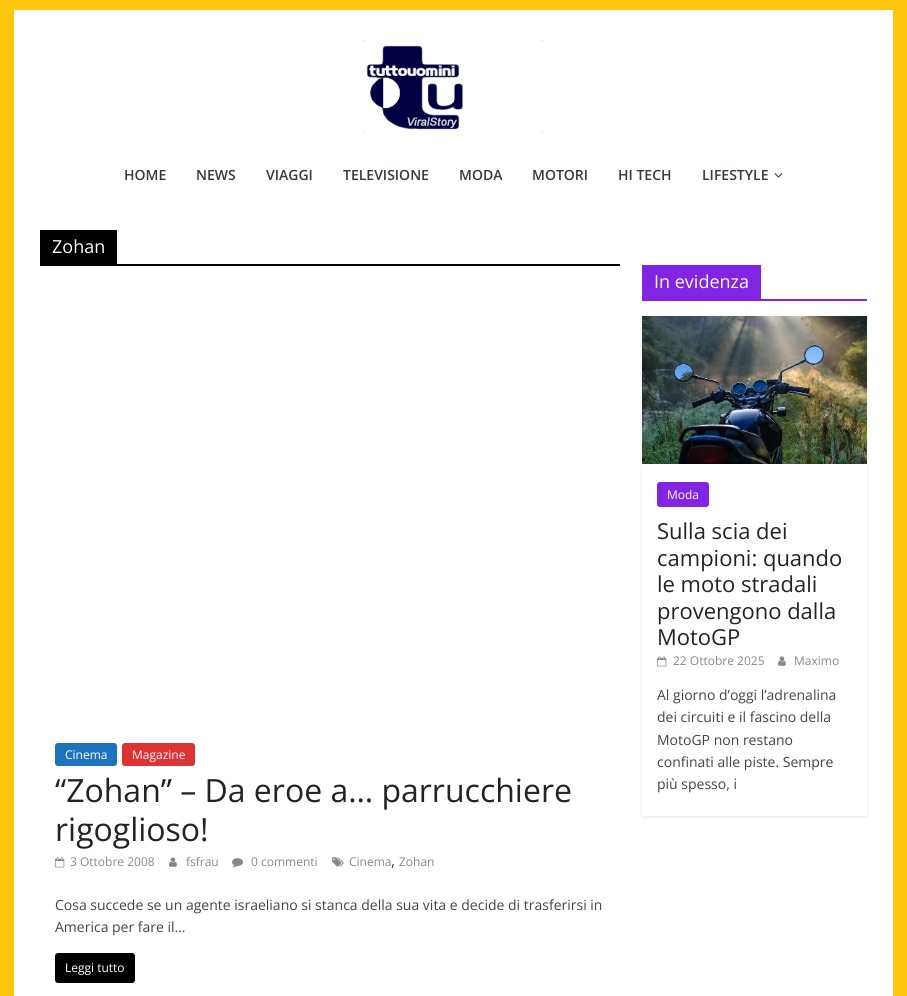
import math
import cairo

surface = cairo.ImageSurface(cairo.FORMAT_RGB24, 907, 996)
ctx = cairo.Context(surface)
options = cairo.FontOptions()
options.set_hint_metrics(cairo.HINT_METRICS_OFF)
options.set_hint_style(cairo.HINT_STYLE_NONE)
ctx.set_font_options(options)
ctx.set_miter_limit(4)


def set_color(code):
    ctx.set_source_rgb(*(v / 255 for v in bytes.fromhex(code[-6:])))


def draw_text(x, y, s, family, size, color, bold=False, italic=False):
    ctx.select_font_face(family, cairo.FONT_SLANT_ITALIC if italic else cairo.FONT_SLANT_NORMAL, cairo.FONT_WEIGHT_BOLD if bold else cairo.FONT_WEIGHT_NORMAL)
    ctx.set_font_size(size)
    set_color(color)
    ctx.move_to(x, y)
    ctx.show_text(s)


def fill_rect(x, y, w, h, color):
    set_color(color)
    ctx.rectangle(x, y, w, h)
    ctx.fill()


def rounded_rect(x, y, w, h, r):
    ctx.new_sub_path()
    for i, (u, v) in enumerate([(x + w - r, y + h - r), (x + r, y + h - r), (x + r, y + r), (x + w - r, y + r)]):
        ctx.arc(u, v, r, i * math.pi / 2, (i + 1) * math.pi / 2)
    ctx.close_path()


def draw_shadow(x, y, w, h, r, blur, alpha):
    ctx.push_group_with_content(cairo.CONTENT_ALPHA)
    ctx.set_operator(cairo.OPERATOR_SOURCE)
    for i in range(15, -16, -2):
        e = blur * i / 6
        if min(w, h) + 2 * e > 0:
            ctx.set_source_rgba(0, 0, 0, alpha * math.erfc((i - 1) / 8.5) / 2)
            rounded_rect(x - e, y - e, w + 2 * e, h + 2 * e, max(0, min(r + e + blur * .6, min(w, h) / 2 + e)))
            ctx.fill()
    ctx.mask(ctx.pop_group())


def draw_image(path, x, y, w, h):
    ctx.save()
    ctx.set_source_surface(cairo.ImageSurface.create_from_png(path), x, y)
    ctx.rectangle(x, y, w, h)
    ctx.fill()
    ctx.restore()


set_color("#ffc610")
ctx.paint()
fill_rect(14, 10, 879, 986, "#ffffff")
draw_image("assets/img1.png", 363, 40, 180, 92)
draw_text(124, 180, "HOME", "Open Sans SemiBold", 14, "#343a40")
draw_text(196, 180, "NEWS", "Open Sans SemiBold", 14, "#343a40")
draw_text(266, 180, "VIAGGI", "Open Sans SemiBold", 14, "#343a40")
draw_text(343, 180, "TELEVISIONE", "Open Sans SemiBold", 14, "#343a40")
draw_text(459, 180, "MODA", "Open Sans SemiBold", 14, "#343a40")
draw_text(532, 180, "MOTORI", "Open Sans SemiBold", 14, "#343a40")
draw_text(618, 180, "HI TECH", "Open Sans SemiBold", 14, "#343a40")
draw_text(702, 180, "LIFESTYLE", "Open Sans SemiBold", 14, "#343a40")
draw_image("assets/img2.png", 774, 173, 9, 5)
fill_rect(40, 264, 580, 2, "#000000")
fill_rect(40, 230, 77, 34, "#000000")
draw_text(52, 253, "Zohan", "Open Sans", 18, "#ffffff")
set_color("#1e73be")
rounded_rect(55, 743, 62, 23, 3)
ctx.fill()
draw_text(65, 759, "Cinema", "Open Sans", 12, "#ffffff")
set_color("#dd3333")
rounded_rect(122, 743, 73, 23, 3)
ctx.fill()
draw_text(132, 759, "Magazine", "Open Sans", 12, "#ffffff")
draw_text(55, 802, "“Zohan” – Da eroe a… parrucchiere", "Open Sans", 32, "#232323")
draw_text(55, 841, "rigoglioso!", "Open Sans", 32, "#232323")
draw_image("assets/img3.png", 55, 857, 10, 11)
draw_text(70, 866, "3 Ottobre 2008", "Open Sans", 12, "#888888")
draw_image("assets/img4.png", 169, 857, 8, 10)
draw_text(186, 866, "fsfrau", "Open Sans", 12, "#888888")
draw_image("assets/img5.png", 232, 858, 11, 10)
draw_text(251, 866, "0 commenti", "Open Sans", 12, "#888888")
draw_image("assets/img6.png", 332, 857, 12, 10)
draw_text(349, 866, "Cinema", "Open Sans", 12, "#888888")
draw_text(391, 866, ",", "Open Sans", 16, "#444444")
draw_text(399, 866, "Zohan", "Open Sans", 12, "#888888")
draw_text(55, 910, "Cosa succede se un agente israeliano si stanca della sua vita e decide di trasferirsi in", "Open Sans", 14, "#444444")
draw_text(55, 932, "America per fare il…", "Open Sans", 14, "#444444")
set_color("#000000")
rounded_rect(55, 953, 80, 30, 3)
ctx.fill()
draw_text(65, 972, "Leggi tutto", "Open Sans", 12, "#ffffff")
fill_rect(642, 299, 225, 2, "#8224e3")
fill_rect(642, 265, 119, 34, "#8224e3")
draw_text(654, 288, "In evidenza", "Open Sans", 18, "#ffffff")
ctx.save()
ctx.set_fill_rule(cairo.FILL_RULE_EVEN_ODD)
ctx.new_path()
ctx.move_to(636, 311)
ctx.line_to(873, 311)
ctx.line_to(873, 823)
ctx.line_to(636, 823)
ctx.close_path()
ctx.move_to(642, 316)
ctx.line_to(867, 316)
ctx.line_to(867, 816)
ctx.line_to(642, 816)
ctx.close_path()
ctx.clip()
set_color("#000000")
draw_shadow(642, 317, 225, 500, 0, 1.5, 0.1)
ctx.restore()
draw_image("assets/img7.png", 642, 316, 225, 148)
set_color("#8224e3")
rounded_rect(657, 482, 52, 25, 3)
ctx.fill()
draw_text(667, 499, "Moda", "Open Sans", 12, "#ffffff")
draw_text(657, 539, "Sulla scia dei", "Open Sans", 22, "#232323")
draw_text(657, 566, "campioni: quando", "Open Sans", 22, "#232323")
draw_text(657, 592, "le moto stradali", "Open Sans", 22, "#232323")
draw_text(657, 619, "provengono dalla", "Open Sans", 22, "#232323")
draw_text(657, 645, "MotoGP", "Open Sans", 22, "#232323")
draw_image("assets/img3.png", 657, 656, 10, 11)
draw_text(673, 665, "22 Ottobre 2025", "Open Sans", 12, "#888888")
draw_image("assets/img4.png", 778, 656, 8, 10)
draw_text(794, 665, "Maximo", "Open Sans", 12, "#888888")
draw_text(657, 700, "Al giorno d’oggi l’adrenalina", "Open Sans", 14, "#444444")
draw_text(657, 722, "dei circuiti e il fascino della", "Open Sans", 14, "#444444")
draw_text(657, 745, "MotoGP non restano", "Open Sans", 14, "#444444")
draw_text(657, 767, "confinati alle piste. Sempre", "Open Sans", 14, "#444444")
draw_text(657, 789, "più spesso, i", "Open Sans", 14, "#444444")
surface.write_to_png("output.png")
